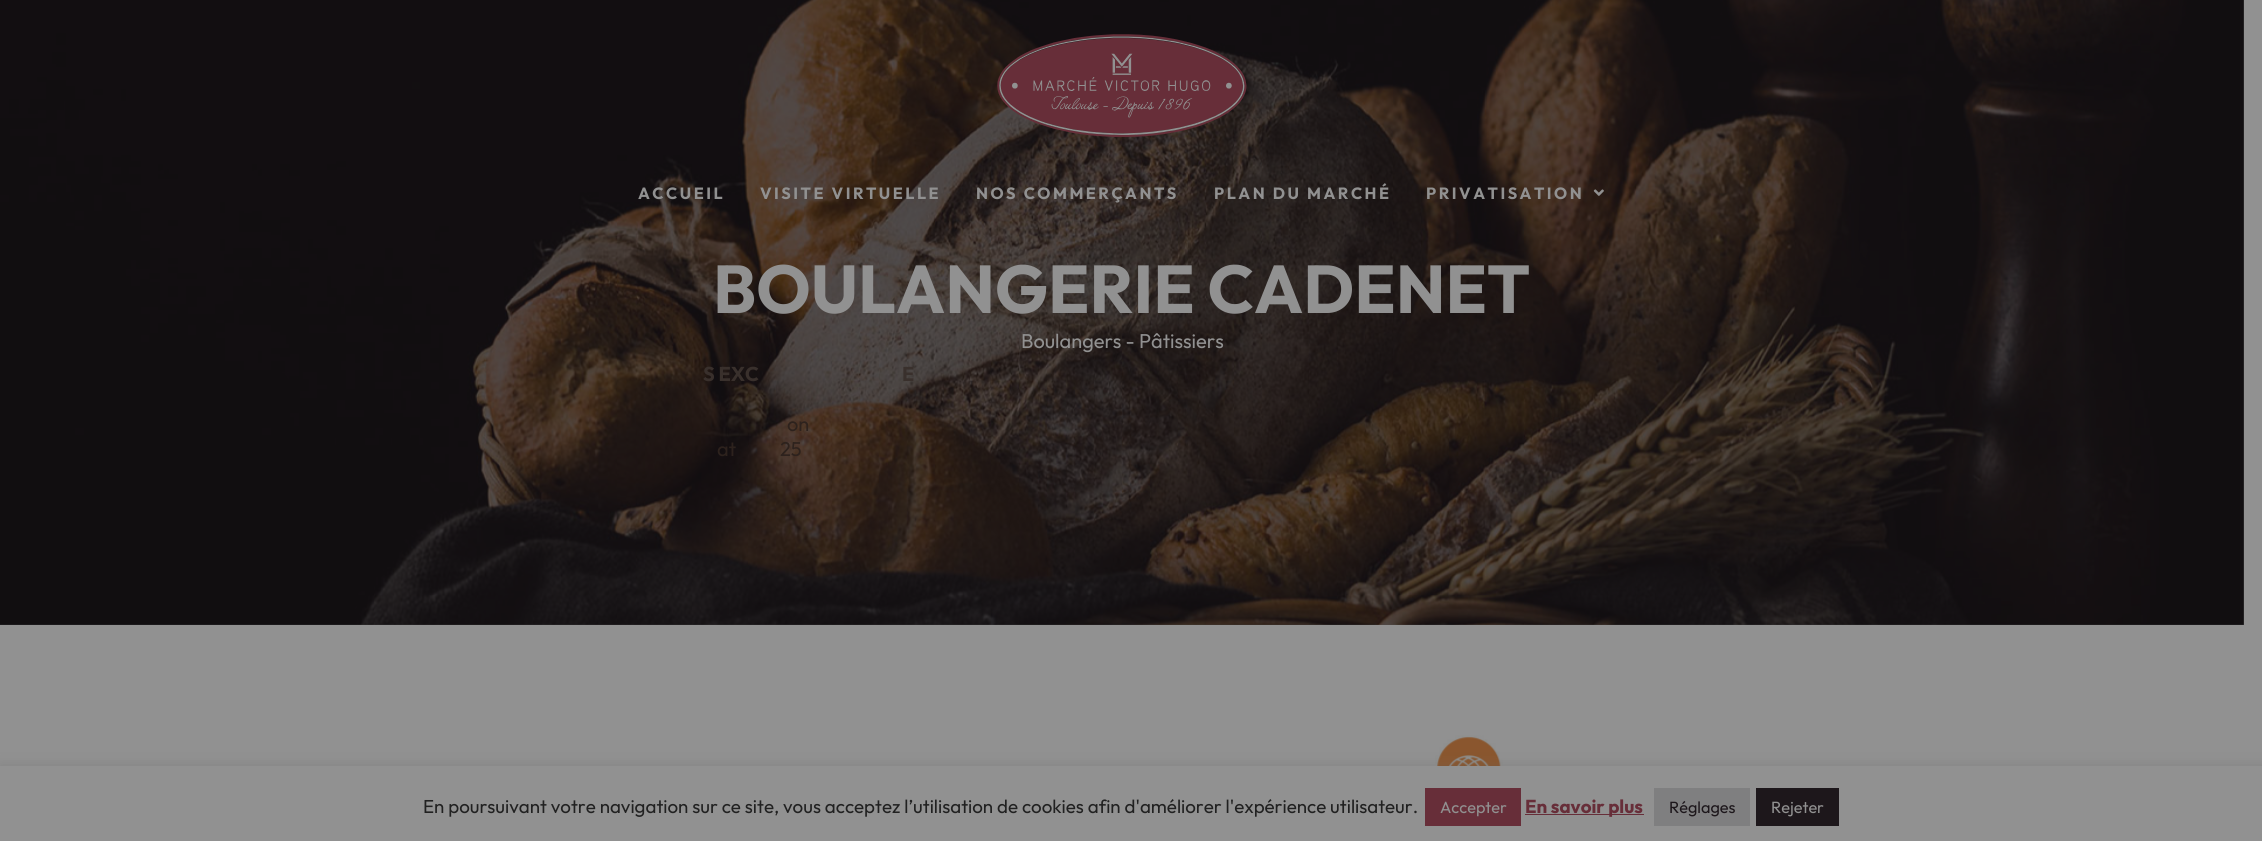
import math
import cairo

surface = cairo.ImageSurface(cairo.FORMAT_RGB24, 2262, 841)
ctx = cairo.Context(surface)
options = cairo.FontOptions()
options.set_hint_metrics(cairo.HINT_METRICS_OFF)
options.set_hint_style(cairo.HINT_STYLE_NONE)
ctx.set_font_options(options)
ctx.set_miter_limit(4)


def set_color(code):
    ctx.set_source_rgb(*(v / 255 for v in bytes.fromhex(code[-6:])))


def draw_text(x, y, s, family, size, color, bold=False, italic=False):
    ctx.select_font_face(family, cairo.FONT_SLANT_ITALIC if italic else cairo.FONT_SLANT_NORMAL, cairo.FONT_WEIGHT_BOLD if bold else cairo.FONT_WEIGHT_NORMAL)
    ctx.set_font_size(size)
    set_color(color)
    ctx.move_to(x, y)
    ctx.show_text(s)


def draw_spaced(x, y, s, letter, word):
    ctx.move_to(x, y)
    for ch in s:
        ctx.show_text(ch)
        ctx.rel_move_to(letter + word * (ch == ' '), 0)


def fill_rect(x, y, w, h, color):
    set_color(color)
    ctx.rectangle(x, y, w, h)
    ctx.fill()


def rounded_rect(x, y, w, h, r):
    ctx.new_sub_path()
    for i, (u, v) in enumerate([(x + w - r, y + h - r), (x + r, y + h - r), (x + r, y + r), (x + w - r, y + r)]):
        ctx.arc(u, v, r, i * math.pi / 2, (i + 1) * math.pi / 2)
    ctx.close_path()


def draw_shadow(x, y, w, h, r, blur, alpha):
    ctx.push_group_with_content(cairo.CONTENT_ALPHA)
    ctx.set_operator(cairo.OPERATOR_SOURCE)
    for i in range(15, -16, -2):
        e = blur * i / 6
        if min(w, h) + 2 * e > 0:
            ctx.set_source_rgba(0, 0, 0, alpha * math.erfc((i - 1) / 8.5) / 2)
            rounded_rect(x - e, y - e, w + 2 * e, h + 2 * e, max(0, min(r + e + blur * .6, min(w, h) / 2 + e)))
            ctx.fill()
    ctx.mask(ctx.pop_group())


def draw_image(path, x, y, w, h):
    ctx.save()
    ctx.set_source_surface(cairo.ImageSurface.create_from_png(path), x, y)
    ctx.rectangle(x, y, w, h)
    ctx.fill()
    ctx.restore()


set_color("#919191")
ctx.paint()
fill_rect(0, 0, 2244, 625, "#575456")
draw_image("assets/img3.png", 0, 0, 2244, 625)
draw_image("assets/img1.png", 997, 34, 250, 103)
ctx.select_font_face("Outfit", cairo.FONT_SLANT_NORMAL, cairo.FONT_WEIGHT_BOLD)
ctx.set_font_size(16.25)
set_color("#919191")
draw_spaced(638, 199, "ACCUEIL", 2.5, 0)
draw_spaced(760, 199, "VISITE VIRTUELLE", 2.5, 0)
draw_spaced(976, 199, "NOS COMMERÇANTS", 2.5, 0)
draw_spaced(1214, 199, "PLAN DU MARCHÉ", 2.5, 0)
draw_spaced(1426, 199, "PRIVATISATION", 2.5, 0)
draw_image("assets/img2.png", 1593, 189, 11, 7)
draw_text(713, 313, "BOULANGERIE CADENET", "Outfit", 67.5, "#919191", bold=True)
draw_text(1021, 348, "Boulangers - Pâtissiers", "Outfit", 20, "#919191")
draw_image("assets/img4.png", 1435, 735, 68, 31)
draw_text(703, 381, "S EXC", "Outfit", 20, "#39302c", bold=True)
draw_text(902, 381, "E", "Outfit", 20, "#39302c", bold=True)
draw_text(787, 431, "on", "Outfit", 20, "#2d221d")
draw_text(717, 456, "at", "Outfit", 20, "#2d221d")
draw_text(780, 456, "25", "Outfit", 20, "#2d221d")
set_color("#636363")
draw_shadow(0, 765, 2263, 75, 0, 6, 0.3)
fill_rect(0, 766, 2262, 75, "#919191")
draw_text(423, 813, "En poursuivant votre navigation sur ce site, vous acceptez l’utilisation de cookies afin d'améliorer l'expérience utilisateur.", "Outfit", 18.75, "#212121")
fill_rect(1425, 788, 96, 38, "#672e39")
draw_text(1440, 813, "Accepter", "Outfit", 16.25, "#919191")
fill_rect(1525, 814, 119, 1, "#672e39")
draw_text(1525, 813, "En savoir plus", "Outfit", 18.75, "#672e39", bold=True)
fill_rect(1654, 788, 96, 38, "#7f7f80")
draw_text(1669, 813, "Réglages", "Outfit", 16.25, "#1d171b")
fill_rect(1756, 788, 83, 38, "#1d171b")
draw_text(1771, 813, "Rejeter", "Outfit", 16.25, "#919191")
surface.write_to_png("output.png")
